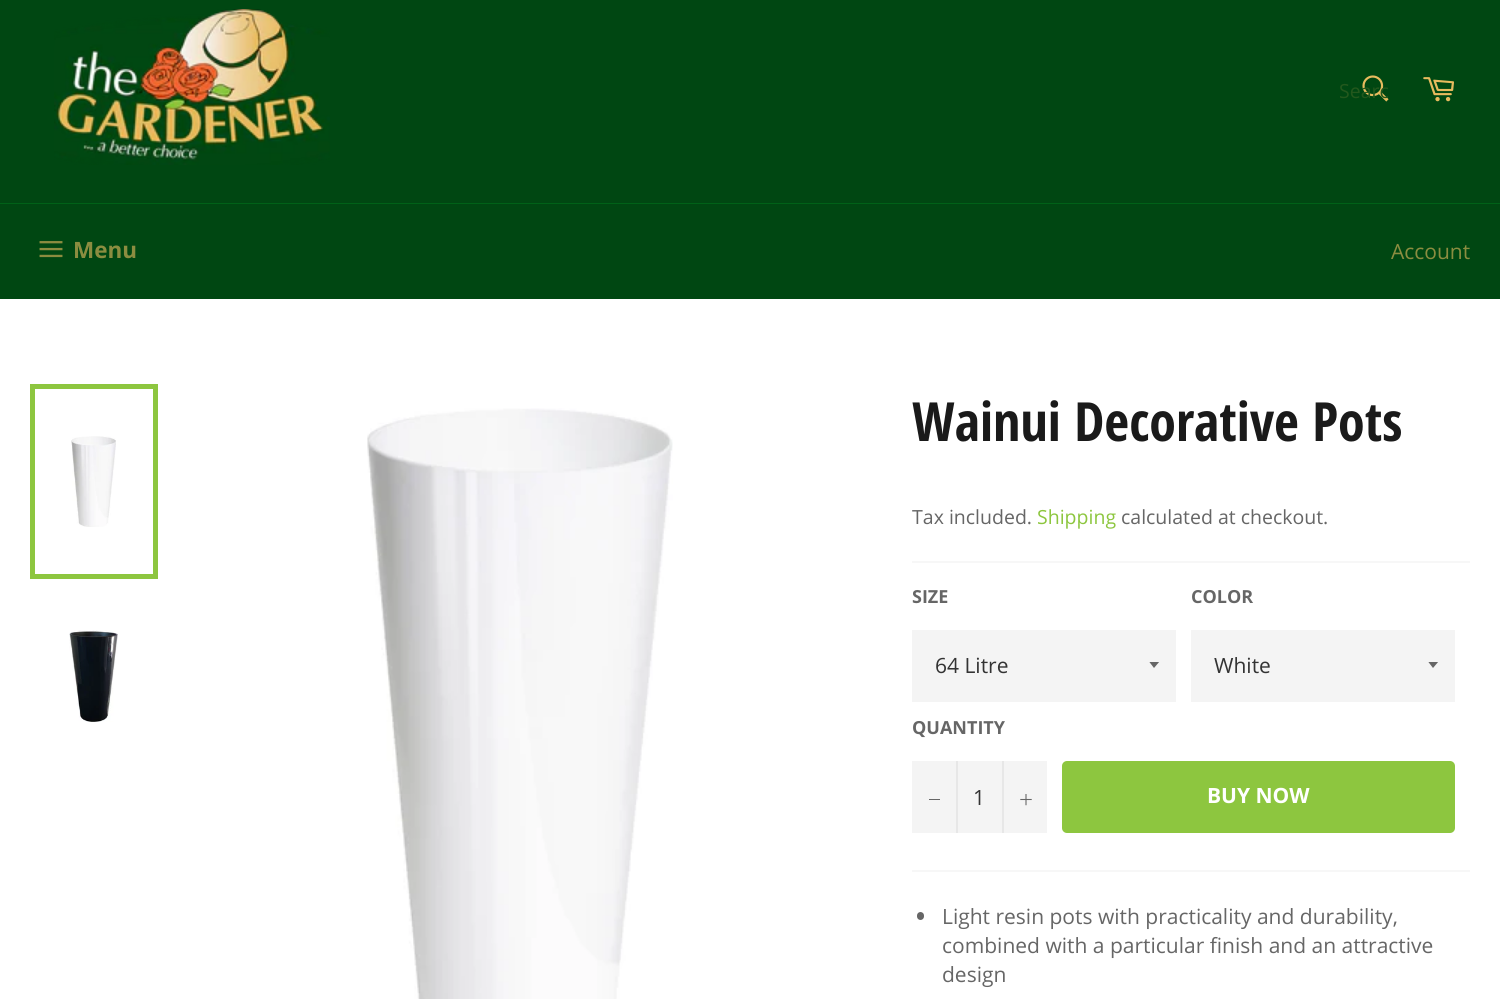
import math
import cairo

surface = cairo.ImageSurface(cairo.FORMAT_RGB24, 1500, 999)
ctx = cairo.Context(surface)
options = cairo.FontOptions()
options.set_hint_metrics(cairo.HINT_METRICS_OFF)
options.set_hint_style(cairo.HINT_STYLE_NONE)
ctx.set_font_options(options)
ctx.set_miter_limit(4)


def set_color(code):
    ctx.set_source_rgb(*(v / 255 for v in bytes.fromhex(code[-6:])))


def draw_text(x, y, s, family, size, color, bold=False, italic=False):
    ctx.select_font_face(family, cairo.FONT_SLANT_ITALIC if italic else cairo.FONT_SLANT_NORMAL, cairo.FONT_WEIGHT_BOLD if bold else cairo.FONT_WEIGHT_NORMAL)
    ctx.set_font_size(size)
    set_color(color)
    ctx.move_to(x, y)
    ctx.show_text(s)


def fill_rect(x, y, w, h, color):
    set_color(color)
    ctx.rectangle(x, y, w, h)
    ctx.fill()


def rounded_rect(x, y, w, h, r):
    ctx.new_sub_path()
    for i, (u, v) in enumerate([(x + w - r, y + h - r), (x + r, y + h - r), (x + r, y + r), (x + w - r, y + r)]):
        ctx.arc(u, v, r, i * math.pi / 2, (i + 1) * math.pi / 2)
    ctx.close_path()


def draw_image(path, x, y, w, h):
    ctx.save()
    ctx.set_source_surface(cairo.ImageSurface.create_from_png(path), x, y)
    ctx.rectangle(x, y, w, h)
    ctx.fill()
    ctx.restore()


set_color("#004712")
ctx.paint()
draw_image("assets/img1.png", 54, 9, 276, 156)
draw_image("assets/img2.png", 1362, 75, 27, 27)
ctx.save()
ctx.rectangle(1340, 78, 48, 27)
ctx.clip()
draw_text(1339, 98, "Searc", "Open Sans", 19.5, "#23581d")
ctx.restore()
draw_image("assets/img3.png", 1423, 77, 31, 25)
fill_rect(0, 203, 1500, 1, "#006118")
draw_image("assets/img4.png", 39, 241, 24, 17)
draw_text(73, 258, "Menu", "Open Sans", 22.5, "#8b8d40", bold=True)
draw_text(1391, 259, "Account", "Open Sans", 21, "#8b8d40")
fill_rect(0, 299, 1500, 700, "#ffffff")
draw_image("assets/img5.png", 71, 436, 45, 91)
ctx.rectangle(32.5, 386.5, 123, 190)
set_color("#8dc63f")
ctx.set_line_width(5)
ctx.stroke()
draw_image("assets/img6.png", 69, 630, 49, 92)
draw_image("assets/img7.png", 367, 408, 306, 591)
draw_text(912, 441, "Wainui Decorative Pots", "Open Sans Condensed", 54, "#1a1a1a", bold=True)
draw_text(912, 524, "Tax included.", "Open Sans", 19.5, "#666666")
draw_text(1037, 524, "Shipping", "Open Sans", 19.5, "#8dc63f")
draw_text(1121, 524, "calculated at checkout.", "Open Sans", 19.5, "#666666")
fill_rect(912, 561, 558, 2, "#f7f7f7")
draw_text(912, 603, "SIZE", "Open Sans", 18, "#666666", bold=True)
fill_rect(912, 630, 264, 72, "#f4f4f4")
ctx.save()
ctx.rectangle(1149, 662, 12, 7)
ctx.clip()
set_color("#666666")
ctx.new_path()
ctx.move_to(1149, 661.5)
ctx.line_to(1154, 668)
ctx.line_to(1159.5, 661.5)
ctx.close_path()
ctx.fill()
ctx.restore()
draw_text(935, 673, "64 Litre", "Open Sans", 21, "#333333")
draw_text(1191, 603, "COLOR", "Open Sans", 18, "#666666", bold=True)
fill_rect(1191, 630, 264, 72, "#f4f4f4")
ctx.save()
ctx.rectangle(1428, 662, 12, 7)
ctx.clip()
set_color("#666666")
ctx.new_path()
ctx.move_to(1428, 661.5)
ctx.line_to(1433, 668)
ctx.line_to(1438.5, 661.5)
ctx.close_path()
ctx.fill()
ctx.restore()
draw_text(1214, 673, "White", "Open Sans", 21, "#333333")
draw_text(912, 734, "QUANTITY", "Open Sans", 18, "#666666", bold=True)
fill_rect(912, 761, 135, 72, "#f4f4f4")
fill_rect(956, 761, 2, 72, "#e7e7e7")
fill_rect(929, 799, 11, 1, "#666666")
draw_text(973, 805, "1", "Open Sans", 21, "#333333")
fill_rect(1002, 761, 2, 72, "#e7e7e7")
draw_image("assets/img8.png", 1020, 794, 12, 12)
set_color("#8dc63f")
rounded_rect(1062, 761, 393, 72, 5)
ctx.fill()
draw_text(1207, 803, "BUY NOW", "Open Sans", 21, "#ffffff", bold=True)
fill_rect(912, 870, 558, 2, "#f7f7f7")
set_color("#666666")
rounded_rect(917, 912, 7, 8, 3.5)
ctx.fill()
draw_text(942, 924, "Light resin pots with practicality and durability,", "Open Sans", 21, "#666666")
draw_text(942, 953, "combined with a particular finish and an attractive", "Open Sans", 21, "#666666")
draw_text(942, 982, "design", "Open Sans", 21, "#666666")
surface.write_to_png("output.png")
